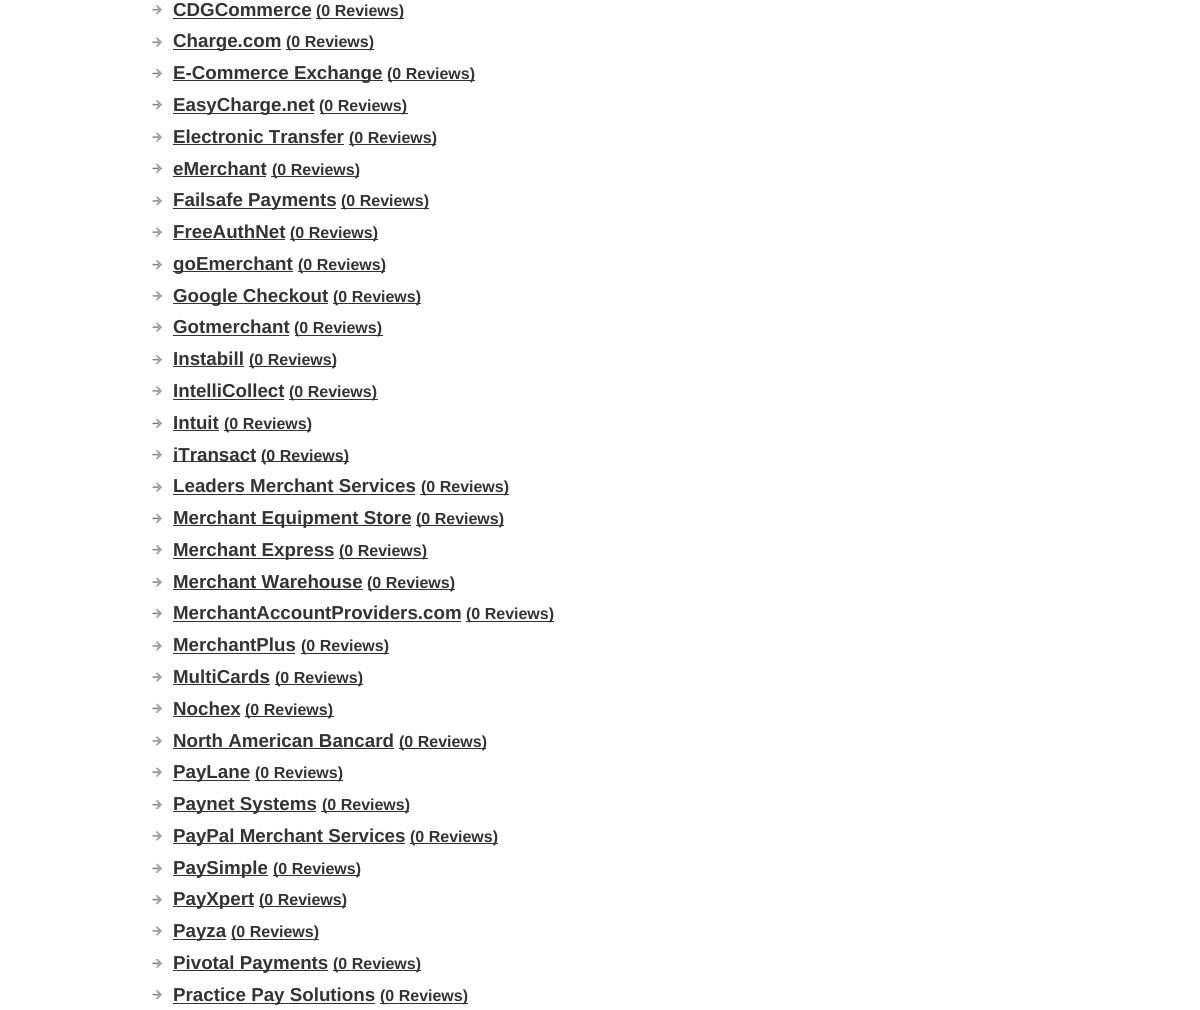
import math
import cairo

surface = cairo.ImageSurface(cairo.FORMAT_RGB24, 1200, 1010)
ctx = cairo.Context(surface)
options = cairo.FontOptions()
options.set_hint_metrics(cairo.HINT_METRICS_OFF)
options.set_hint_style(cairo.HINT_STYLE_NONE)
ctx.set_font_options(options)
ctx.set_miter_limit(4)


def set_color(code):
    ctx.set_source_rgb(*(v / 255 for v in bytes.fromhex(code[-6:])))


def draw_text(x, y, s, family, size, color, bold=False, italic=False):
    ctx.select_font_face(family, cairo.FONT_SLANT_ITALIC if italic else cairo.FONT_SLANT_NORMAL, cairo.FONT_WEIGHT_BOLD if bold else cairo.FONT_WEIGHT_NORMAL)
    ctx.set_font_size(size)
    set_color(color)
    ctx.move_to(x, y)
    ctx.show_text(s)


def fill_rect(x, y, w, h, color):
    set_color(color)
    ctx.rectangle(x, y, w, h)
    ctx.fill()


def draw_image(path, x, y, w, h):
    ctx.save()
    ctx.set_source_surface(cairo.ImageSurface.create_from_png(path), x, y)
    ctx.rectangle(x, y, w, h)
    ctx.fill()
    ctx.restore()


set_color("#ffffff")
ctx.paint()
draw_image("assets/img1.png", 152, 5, 11, 10)
draw_text(173, 16, "CDGCommerce", "Liberation Sans", 18.75, "#333333", bold=True)
fill_rect(173, 18, 138, 1, "#333333")
fill_rect(316, 18, 88, 1, "#333333")
draw_text(316, 16, "(0 Reviews)", "Liberation Sans", 16, "#333333", bold=True)
draw_image("assets/img2.png", 152, 37, 11, 10)
fill_rect(173, 49, 108, 1, "#333333")
draw_text(173, 47, "Charge.com", "Liberation Sans", 18.75, "#333333", bold=True)
fill_rect(286, 49, 88, 1, "#333333")
draw_text(286, 47, "(0 Reviews)", "Liberation Sans", 16, "#333333", bold=True)
draw_image("assets/img3.png", 152, 68, 11, 10)
fill_rect(173, 80, 210, 1, "#333333")
draw_text(173, 79, "E-Commerce Exchange", "Liberation Sans", 18.75, "#333333", bold=True)
fill_rect(388, 80, 87, 1, "#333333")
draw_text(387, 79, "(0 Reviews)", "Liberation Sans", 16, "#333333", bold=True)
draw_image("assets/img4.png", 152, 100, 11, 10)
fill_rect(173, 113, 141, 1, "#333333")
draw_text(173, 111, "EasyCharge.net", "Liberation Sans", 18.75, "#333333", bold=True)
fill_rect(320, 113, 88, 1, "#333333")
draw_text(319, 111, "(0 Reviews)", "Liberation Sans", 16, "#333333", bold=True)
draw_image("assets/img2.png", 152, 132, 11, 10)
draw_text(173, 143, "Electronic Transfer", "Liberation Sans", 18.75, "#333333", bold=True)
fill_rect(173, 144, 171, 1, "#333333")
fill_rect(349, 144, 87, 1, "#333333")
draw_text(349, 143, "(0 Reviews)", "Liberation Sans", 16, "#333333", bold=True)
draw_image("assets/img3.png", 152, 163, 11, 10)
draw_text(173, 175, "eMerchant", "Liberation Sans", 18.75, "#333333", bold=True)
fill_rect(173, 176, 93, 1, "#333333")
fill_rect(271, 176, 88, 1, "#333333")
draw_text(272, 175, "(0 Reviews)", "Liberation Sans", 16, "#333333", bold=True)
draw_image("assets/img5.png", 152, 196, 11, 10)
fill_rect(173, 208, 163, 1, "#333333")
draw_text(173, 206, "Failsafe Payments", "Liberation Sans", 18.75, "#333333", bold=True)
fill_rect(341, 208, 88, 1, "#333333")
draw_text(341, 206, "(0 Reviews)", "Liberation Sans", 16, "#333333", bold=True)
draw_image("assets/img2.png", 152, 227, 11, 10)
draw_text(173, 238, "FreeAuthNet", "Liberation Sans", 18.75, "#333333", bold=True)
fill_rect(173, 239, 112, 1, "#333333")
fill_rect(290, 239, 88, 1, "#333333")
draw_text(290, 238, "(0 Reviews)", "Liberation Sans", 16, "#333333", bold=True)
draw_image("assets/img4.png", 152, 260, 11, 10)
fill_rect(173, 271, 120, 1, "#333333")
draw_text(173, 270, "goEmerchant", "Liberation Sans", 18.75, "#333333", bold=True)
fill_rect(298, 271, 87, 1, "#333333")
draw_text(298, 270, "(0 Reviews)", "Liberation Sans", 16, "#333333", bold=True)
draw_image("assets/img6.png", 152, 291, 11, 10)
fill_rect(173, 303, 155, 1, "#333333")
draw_text(173, 302, "Google Checkout", "Liberation Sans", 18.75, "#333333", bold=True)
fill_rect(333, 303, 88, 1, "#333333")
draw_text(333, 302, "(0 Reviews)", "Liberation Sans", 16, "#333333", bold=True)
draw_image("assets/img2.png", 152, 322, 11, 10)
draw_text(173, 333, "Gotmerchant", "Liberation Sans", 18.75, "#333333", bold=True)
fill_rect(173, 335, 116, 1, "#333333")
fill_rect(295, 335, 88, 1, "#333333")
draw_text(294, 333, "(0 Reviews)", "Liberation Sans", 16, "#333333", bold=True)
draw_image("assets/img4.png", 152, 355, 11, 10)
draw_text(173, 365, "Instabill", "Liberation Sans", 18.75, "#333333", bold=True)
fill_rect(173, 366, 71, 1, "#333333")
fill_rect(249, 366, 87, 1, "#333333")
draw_text(249, 365, "(0 Reviews)", "Liberation Sans", 16, "#333333", bold=True)
draw_image("assets/img6.png", 152, 386, 11, 10)
draw_text(173, 397, "IntelliCollect", "Liberation Sans", 18.75, "#333333", bold=True)
fill_rect(173, 399, 111, 1, "#333333")
fill_rect(289, 399, 89, 1, "#333333")
draw_text(289, 397, "(0 Reviews)", "Liberation Sans", 16, "#333333", bold=True)
draw_image("assets/img3.png", 152, 418, 11, 10)
draw_text(173, 429, "Intuit", "Liberation Sans", 18.75, "#333333", bold=True)
fill_rect(173, 430, 46, 1, "#333333")
fill_rect(224, 430, 87, 1, "#333333")
draw_text(224, 429, "(0 Reviews)", "Liberation Sans", 16, "#333333", bold=True)
draw_image("assets/img4.png", 152, 450, 11, 10)
fill_rect(173, 461, 83, 1, "#333333")
draw_text(173, 461, "iTransact", "Liberation Sans", 18.75, "#333333", bold=True)
fill_rect(261, 461, 88, 1, "#333333")
draw_text(261, 461, "(0 Reviews)", "Liberation Sans", 16, "#333333", bold=True)
draw_image("assets/img2.png", 152, 482, 11, 10)
draw_text(173, 492, "Leaders Merchant Services", "Liberation Sans", 18.75, "#333333", bold=True)
fill_rect(173, 494, 242, 1, "#333333")
fill_rect(420, 494, 89, 1, "#333333")
draw_text(421, 492, "(0 Reviews)", "Liberation Sans", 16, "#333333", bold=True)
draw_image("assets/img3.png", 152, 513, 11, 10)
fill_rect(173, 525, 238, 1, "#333333")
draw_text(173, 524, "Merchant Equipment Store", "Liberation Sans", 18.75, "#333333", bold=True)
fill_rect(416, 525, 88, 1, "#333333")
draw_text(416, 524, "(0 Reviews)", "Liberation Sans", 16, "#333333", bold=True)
draw_image("assets/img4.png", 152, 545, 11, 10)
fill_rect(173, 558, 161, 1, "#333333")
draw_text(173, 556, "Merchant Express", "Liberation Sans", 18.75, "#333333", bold=True)
fill_rect(339, 558, 89, 1, "#333333")
draw_text(339, 556, "(0 Reviews)", "Liberation Sans", 16, "#333333", bold=True)
draw_image("assets/img2.png", 152, 577, 11, 10)
draw_text(173, 588, "Merchant Warehouse", "Liberation Sans", 18.75, "#333333", bold=True)
fill_rect(173, 589, 190, 1, "#333333")
fill_rect(368, 589, 87, 1, "#333333")
draw_text(367, 588, "(0 Reviews)", "Liberation Sans", 16, "#333333", bold=True)
draw_image("assets/img3.png", 152, 608, 11, 10)
draw_text(173, 619, "MerchantAccountProviders.com", "Liberation Sans", 18.75, "#333333", bold=True)
fill_rect(173, 621, 288, 1, "#333333")
fill_rect(466, 621, 88, 1, "#333333")
draw_text(466, 619, "(0 Reviews)", "Liberation Sans", 16, "#333333", bold=True)
draw_image("assets/img6.png", 152, 641, 11, 10)
draw_text(173, 651, "MerchantPlus", "Liberation Sans", 18.75, "#333333", bold=True)
fill_rect(173, 653, 122, 1, "#333333")
fill_rect(301, 653, 88, 1, "#333333")
draw_text(301, 651, "(0 Reviews)", "Liberation Sans", 16, "#333333", bold=True)
draw_image("assets/img2.png", 152, 672, 11, 10)
draw_text(173, 683, "MultiCards", "Liberation Sans", 18.75, "#333333", bold=True)
fill_rect(173, 684, 97, 1, "#333333")
fill_rect(275, 684, 88, 1, "#333333")
draw_text(275, 683, "(0 Reviews)", "Liberation Sans", 16, "#333333", bold=True)
draw_image("assets/img3.png", 152, 703, 11, 10)
draw_text(173, 715, "Nochex", "Liberation Sans", 18.75, "#333333", bold=True)
fill_rect(173, 716, 67, 1, "#333333")
fill_rect(245, 716, 89, 1, "#333333")
draw_text(245, 715, "(0 Reviews)", "Liberation Sans", 16, "#333333", bold=True)
draw_image("assets/img6.png", 152, 736, 11, 10)
draw_text(173, 747, "North American Bancard", "Liberation Sans", 18.75, "#333333", bold=True)
fill_rect(173, 748, 221, 1, "#333333")
fill_rect(399, 748, 87, 1, "#333333")
draw_text(399, 747, "(0 Reviews)", "Liberation Sans", 16, "#333333", bold=True)
draw_image("assets/img2.png", 152, 767, 11, 10)
fill_rect(173, 780, 77, 1, "#333333")
draw_text(173, 778, "PayLane", "Liberation Sans", 18.75, "#333333", bold=True)
fill_rect(255, 780, 88, 1, "#333333")
draw_text(255, 778, "(0 Reviews)", "Liberation Sans", 16, "#333333", bold=True)
draw_image("assets/img4.png", 152, 800, 11, 10)
fill_rect(173, 811, 143, 1, "#333333")
draw_text(173, 810, "Paynet Systems", "Liberation Sans", 18.75, "#333333", bold=True)
fill_rect(321, 811, 88, 1, "#333333")
draw_text(322, 810, "(0 Reviews)", "Liberation Sans", 16, "#333333", bold=True)
draw_image("assets/img6.png", 152, 831, 11, 10)
fill_rect(173, 843, 232, 1, "#333333")
draw_text(173, 842, "PayPal Merchant Services", "Liberation Sans", 18.75, "#333333", bold=True)
fill_rect(410, 843, 88, 1, "#333333")
draw_text(410, 842, "(0 Reviews)", "Liberation Sans", 16, "#333333", bold=True)
draw_image("assets/img3.png", 152, 863, 11, 10)
fill_rect(173, 875, 95, 1, "#333333")
draw_text(173, 874, "PaySimple", "Liberation Sans", 18.75, "#333333", bold=True)
fill_rect(273, 875, 87, 1, "#333333")
draw_text(273, 874, "(0 Reviews)", "Liberation Sans", 16, "#333333", bold=True)
draw_image("assets/img4.png", 152, 895, 11, 10)
fill_rect(173, 906, 81, 1, "#333333")
draw_text(173, 905, "PayXpert", "Liberation Sans", 18.75, "#333333", bold=True)
fill_rect(259, 906, 87, 1, "#333333")
draw_text(259, 905, "(0 Reviews)", "Liberation Sans", 16, "#333333", bold=True)
draw_image("assets/img6.png", 152, 926, 11, 10)
fill_rect(173, 939, 53, 1, "#333333")
draw_text(173, 937, "Payza", "Liberation Sans", 18.75, "#333333", bold=True)
fill_rect(231, 939, 88, 1, "#333333")
draw_text(231, 937, "(0 Reviews)", "Liberation Sans", 16, "#333333", bold=True)
draw_image("assets/img3.png", 152, 958, 11, 10)
fill_rect(173, 970, 155, 1, "#333333")
draw_text(173, 969, "Pivotal Payments", "Liberation Sans", 18.75, "#333333", bold=True)
fill_rect(333, 970, 88, 1, "#333333")
draw_text(333, 969, "(0 Reviews)", "Liberation Sans", 16, "#333333", bold=True)
draw_image("assets/img4.png", 152, 990, 11, 10)
fill_rect(173, 1003, 202, 1, "#333333")
draw_text(173, 1001, "Practice Pay Solutions", "Liberation Sans", 18.75, "#333333", bold=True)
fill_rect(380, 1003, 88, 1, "#333333")
draw_text(380, 1001, "(0 Reviews)", "Liberation Sans", 16, "#333333", bold=True)
surface.write_to_png("output.png")
